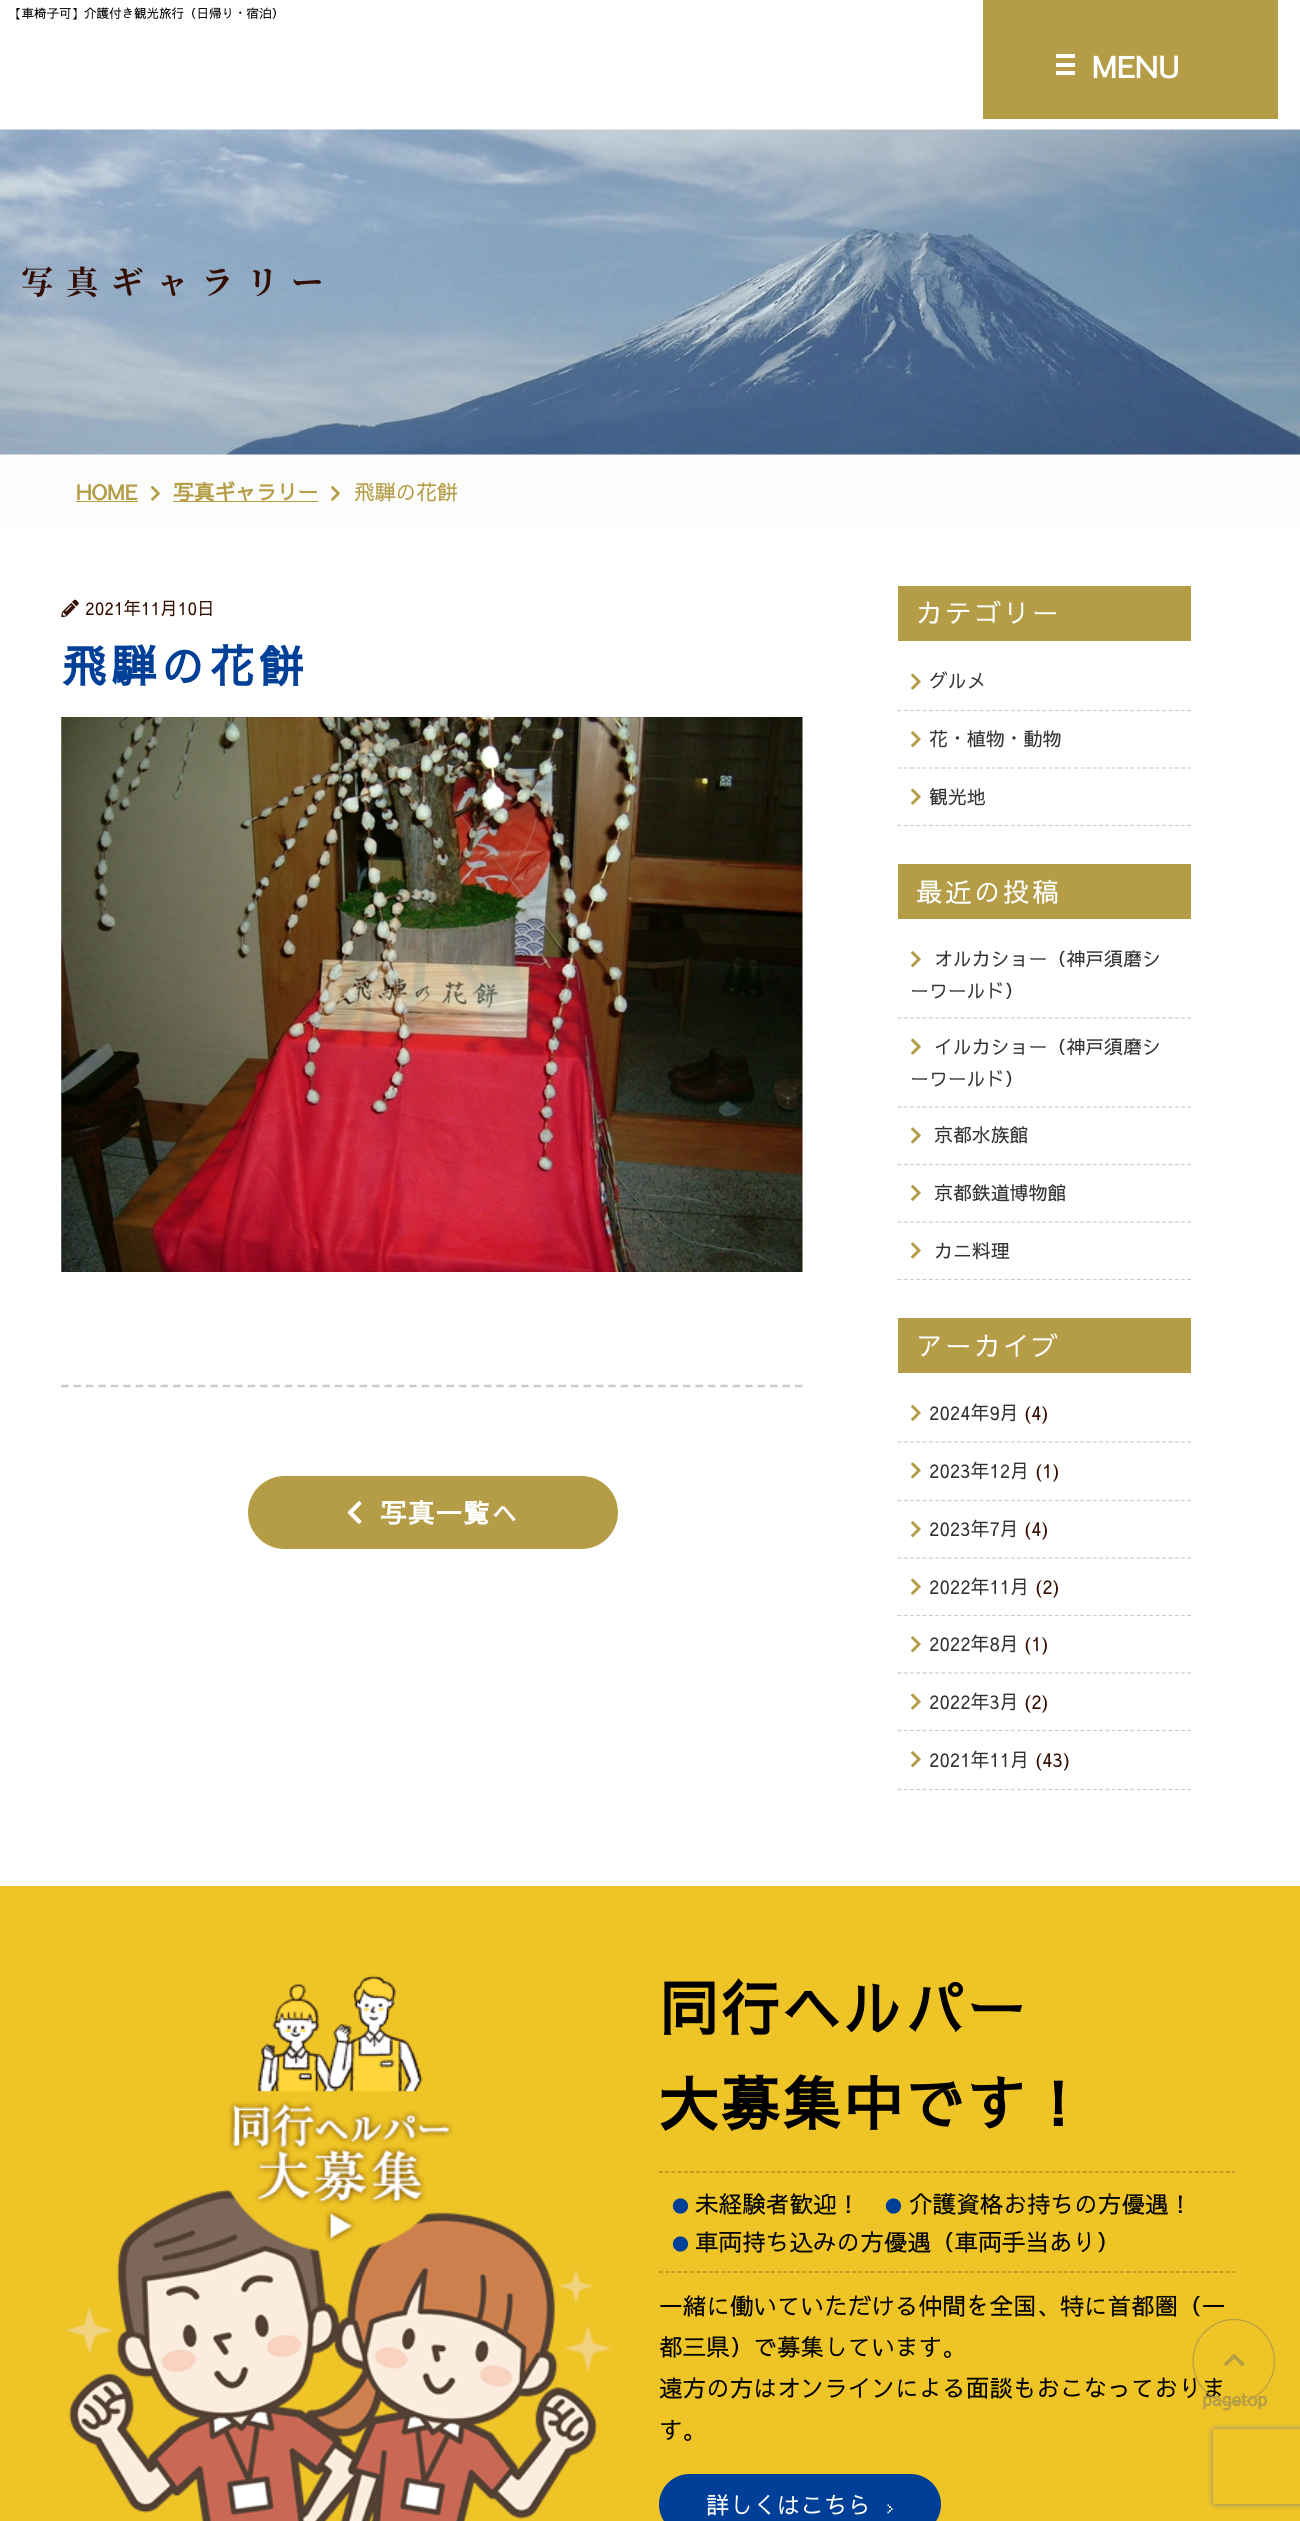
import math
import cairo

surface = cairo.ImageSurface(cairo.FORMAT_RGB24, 1300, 2521)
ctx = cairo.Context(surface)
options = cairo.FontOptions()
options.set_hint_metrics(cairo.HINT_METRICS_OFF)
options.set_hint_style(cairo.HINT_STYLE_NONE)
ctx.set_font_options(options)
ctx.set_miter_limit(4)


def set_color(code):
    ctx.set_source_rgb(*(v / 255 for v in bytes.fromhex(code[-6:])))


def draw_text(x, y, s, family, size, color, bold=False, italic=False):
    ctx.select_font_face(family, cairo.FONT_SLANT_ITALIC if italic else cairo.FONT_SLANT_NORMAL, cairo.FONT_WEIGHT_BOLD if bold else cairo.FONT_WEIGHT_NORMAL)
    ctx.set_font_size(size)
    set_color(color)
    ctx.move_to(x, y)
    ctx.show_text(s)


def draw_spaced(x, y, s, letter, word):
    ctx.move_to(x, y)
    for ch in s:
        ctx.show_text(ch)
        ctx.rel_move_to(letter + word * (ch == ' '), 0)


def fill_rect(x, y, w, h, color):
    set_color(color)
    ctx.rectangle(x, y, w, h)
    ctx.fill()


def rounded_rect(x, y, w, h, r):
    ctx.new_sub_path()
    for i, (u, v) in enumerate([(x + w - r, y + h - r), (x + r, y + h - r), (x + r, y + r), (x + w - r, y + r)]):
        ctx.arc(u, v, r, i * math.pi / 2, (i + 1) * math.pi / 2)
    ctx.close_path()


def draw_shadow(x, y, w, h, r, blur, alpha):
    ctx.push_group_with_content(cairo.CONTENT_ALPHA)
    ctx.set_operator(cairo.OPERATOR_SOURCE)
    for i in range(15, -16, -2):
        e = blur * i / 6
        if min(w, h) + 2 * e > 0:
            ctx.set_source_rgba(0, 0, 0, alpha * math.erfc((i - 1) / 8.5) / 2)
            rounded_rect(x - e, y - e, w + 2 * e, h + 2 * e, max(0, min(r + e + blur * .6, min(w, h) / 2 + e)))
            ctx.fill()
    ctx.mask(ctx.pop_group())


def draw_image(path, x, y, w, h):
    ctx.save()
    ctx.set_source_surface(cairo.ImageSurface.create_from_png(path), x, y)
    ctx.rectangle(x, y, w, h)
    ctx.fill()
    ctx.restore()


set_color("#ffffff")
ctx.paint()
draw_text(9, 18, "【車椅子可】介護付き観光旅行（日帰り・宿泊）", "Sawarabi Gothic", 12.5, "#000000")
fill_rect(983, 0, 295, 119, "#b49d46")
fill_rect(1056, 54, 19, 4, "#ffffff")
draw_text(1092, 78, "MENU", "Sawarabi Gothic", 29.5, "#ffffff", bold=True)
fill_rect(1056, 63, 19, 4, "#ffffff")
fill_rect(1056, 71, 19, 4, "#ffffff")
fill_rect(0, 454, 1300, 74, "#fcfcfb")
draw_image("assets/img1.png", 0, 129, 1300, 326)
ctx.select_font_face("Noto Serif JP", cairo.FONT_SLANT_NORMAL, cairo.FONT_WEIGHT_BOLD)
ctx.set_font_size(32.5)
set_color("#330d00")
draw_spaced(21, 294, "写真ギャラリー", 12.5, 0)
draw_text(76, 500, "HOME", "Sawarabi Gothic", 20.75, "#b49d46", bold=True)
fill_rect(76, 501, 62, 1, "#b49d46")
draw_image("assets/img2.png", 151, 486, 9, 15)
fill_rect(173, 501, 145, 1, "#b49d46")
draw_text(173, 500, "写真ギャラリー", "Sawarabi Gothic", 20.75, "#b49d46", bold=True)
draw_image("assets/img2.png", 331, 486, 9, 15)
draw_text(354, 500, "飛騨の花餅", "Sawarabi Gothic", 20.75, "#b49d46")
ctx.new_path()
ctx.move_to(61, 1386)
ctx.line_to(802.5, 1386)
set_color("#cccccc")
ctx.set_line_width(2.5)
ctx.set_dash([7.5, 4.94])
ctx.stroke()
draw_image("assets/img3.png", 61, 599, 18, 19)
draw_text(85, 615, "2021年11月10日", "Sawarabi Gothic", 17.5, "#330d00")
ctx.select_font_face("Sawarabi Gothic", cairo.FONT_SLANT_NORMAL, cairo.FONT_WEIGHT_BOLD)
ctx.set_font_size(44.25)
set_color("#003f97")
draw_spaced(62, 683, "飛騨の花餅", 5, 0)
draw_image("assets/img4.png", 61, 717, 742, 555)
set_color("#b49d46")
rounded_rect(248, 1476, 370, 73, 36.5)
ctx.fill()
draw_image("assets/img5.png", 347, 1501, 15, 23)
ctx.set_font_size(26.5)
set_color("#ffffff")
draw_spaced(380, 1523, "写真一覧へ", 1.25, 0)
fill_rect(898, 586, 293, 55, "#b49d46")
ctx.select_font_face("Sawarabi Gothic")
set_color("#ffffff")
draw_spaced(916, 623, "カテゴリー", 2.5, 0)
ctx.new_path()
ctx.move_to(897.5, 710.5)
ctx.line_to(1191, 710.5)
set_color("#cccccc")
ctx.set_line_width(1.2)
ctx.set_dash([3.75, 2.55])
ctx.stroke()
draw_image("assets/img6.png", 911, 673, 10, 17)
draw_text(929, 688, "グルメ", "Sawarabi Gothic", 18.9, "#333333")
ctx.new_path()
ctx.move_to(897.5, 768)
ctx.line_to(1191, 768)
set_color("#cccccc")
ctx.stroke()
draw_image("assets/img7.png", 911, 731, 10, 17)
draw_text(929, 746, "花・植物・動物", "Sawarabi Gothic", 18.9, "#333333")
ctx.new_path()
ctx.move_to(897.5, 825.5)
ctx.line_to(1191, 825.5)
set_color("#cccccc")
ctx.stroke()
draw_image("assets/img6.png", 911, 788, 10, 17)
draw_text(929, 804, "観光地", "Sawarabi Gothic", 18.9, "#333333")
fill_rect(898, 864, 293, 55, "#b49d46")
ctx.set_font_size(26.5)
set_color("#ffffff")
draw_spaced(916, 902, "最近の投稿", 2.5, 0)
ctx.new_path()
ctx.move_to(897.5, 1018)
ctx.line_to(1191, 1018)
set_color("#cccccc")
ctx.stroke()
draw_image("assets/img7.png", 911, 951, 10, 17)
draw_text(934, 966, "オルカショー（神戸須磨シ", "Sawarabi Gothic", 18.9, "#333333")
draw_text(910, 998, "ーワールド）", "Sawarabi Gothic", 18.9, "#333333")
ctx.new_path()
ctx.move_to(897.5, 1107)
ctx.line_to(1191, 1107)
set_color("#cccccc")
ctx.stroke()
draw_image("assets/img6.png", 911, 1038, 10, 17)
draw_text(934, 1054, "イルカショー（神戸須磨シ", "Sawarabi Gothic", 18.9, "#333333")
draw_text(910, 1086, "ーワールド）", "Sawarabi Gothic", 18.9, "#333333")
ctx.new_path()
ctx.move_to(897.5, 1164.5)
ctx.line_to(1191, 1164.5)
set_color("#cccccc")
ctx.stroke()
draw_image("assets/img8.png", 911, 1127, 10, 17)
draw_text(934, 1142, "京都水族館", "Sawarabi Gothic", 18.9, "#333333")
ctx.new_path()
ctx.move_to(897.5, 1222)
ctx.line_to(1191, 1222)
set_color("#cccccc")
ctx.stroke()
draw_image("assets/img9.png", 911, 1184, 10, 17)
draw_text(934, 1200, "京都鉄道博物館", "Sawarabi Gothic", 18.9, "#333333")
ctx.new_path()
ctx.move_to(897.5, 1279.5)
ctx.line_to(1191, 1279.5)
set_color("#cccccc")
ctx.stroke()
draw_image("assets/img8.png", 911, 1242, 10, 17)
draw_text(934, 1258, "カニ料理", "Sawarabi Gothic", 18.9, "#333333")
fill_rect(898, 1318, 293, 55, "#b49d46")
ctx.set_font_size(26.5)
set_color("#ffffff")
draw_spaced(916, 1356, "アーカイブ", 2.5, 0)
ctx.new_path()
ctx.move_to(897.5, 1442)
ctx.line_to(1191, 1442)
set_color("#cccccc")
ctx.stroke()
draw_image("assets/img9.png", 911, 1404, 10, 17)
draw_text(929, 1420, "2024年9月", "Sawarabi Gothic", 18.9, "#333333")
draw_text(1024, 1420, "(4)", "Sawarabi Gothic", 18.9, "#330d00")
ctx.new_path()
ctx.move_to(897.5, 1500.5)
ctx.line_to(1191, 1500.5)
set_color("#cccccc")
ctx.stroke()
draw_image("assets/img8.png", 911, 1462, 10, 17)
draw_text(929, 1478, "2023年12月", "Sawarabi Gothic", 18.9, "#333333")
draw_text(1035, 1478, "(1)", "Sawarabi Gothic", 18.9, "#330d00")
ctx.new_path()
ctx.move_to(897.5, 1558)
ctx.line_to(1191, 1558)
set_color("#cccccc")
ctx.stroke()
draw_image("assets/img7.png", 911, 1521, 10, 17)
draw_text(929, 1536, "2023年7月", "Sawarabi Gothic", 18.9, "#333333")
draw_text(1024, 1536, "(4)", "Sawarabi Gothic", 18.9, "#330d00")
ctx.new_path()
ctx.move_to(897.5, 1615.5)
ctx.line_to(1191, 1615.5)
set_color("#cccccc")
ctx.stroke()
draw_image("assets/img6.png", 911, 1578, 10, 17)
draw_text(929, 1594, "2022年11月", "Sawarabi Gothic", 18.9, "#333333")
draw_text(1035, 1594, "(2)", "Sawarabi Gothic", 18.9, "#330d00")
ctx.new_path()
ctx.move_to(897.5, 1673)
ctx.line_to(1191, 1673)
set_color("#cccccc")
ctx.stroke()
draw_image("assets/img7.png", 911, 1636, 10, 17)
draw_text(929, 1651, "2022年8月", "Sawarabi Gothic", 18.9, "#333333")
draw_text(1024, 1651, "(1)", "Sawarabi Gothic", 18.9, "#330d00")
ctx.new_path()
ctx.move_to(897.5, 1730.5)
ctx.line_to(1191, 1730.5)
set_color("#cccccc")
ctx.stroke()
draw_image("assets/img6.png", 911, 1693, 10, 17)
draw_text(929, 1709, "2022年3月", "Sawarabi Gothic", 18.9, "#333333")
draw_text(1024, 1709, "(2)", "Sawarabi Gothic", 18.9, "#330d00")
ctx.new_path()
ctx.move_to(897.5, 1789.5)
ctx.line_to(1191, 1789.5)
set_color("#cccccc")
ctx.stroke()
draw_image("assets/img7.png", 911, 1751, 10, 17)
draw_text(929, 1767, "2021年11月", "Sawarabi Gothic", 18.9, "#333333")
draw_text(1035, 1767, "(43)", "Sawarabi Gothic", 18.9, "#330d00")
fill_rect(0, 1886, 1300, 635, "#efc426")
draw_image("assets/img11.png", 65, 2189, 546, 332)
draw_image("assets/img10.png", 228, 1975, 225, 277)
ctx.select_font_face("Sawarabi Gothic", cairo.FONT_SLANT_NORMAL, cairo.FONT_WEIGHT_BOLD)
ctx.set_font_size(59)
set_color("#000000")
draw_spaced(659, 2031, "同行ヘルパー", 2.5, 0)
draw_spaced(659, 2126, "大募集中です！", 2.5, 0)
ctx.new_path()
ctx.move_to(659, 2172)
ctx.line_to(1235, 2172)
set_color("#a08319")
ctx.set_dash([3.75, 2.48])
ctx.stroke()
ctx.new_path()
ctx.move_to(659, 2272)
ctx.line_to(1235, 2272)
ctx.stroke()
draw_text(671, 2213, "●", "Sawarabi Gothic", 18.9, "#003f97")
draw_text(695, 2213, "未経験者歓迎！", "Sawarabi Gothic", 23.6, "#000000")
draw_text(884, 2213, "●", "Sawarabi Gothic", 18.9, "#003f97")
draw_text(909, 2213, "介護資格お持ちの方優遇！", "Sawarabi Gothic", 23.6, "#000000")
draw_text(671, 2251, "●", "Sawarabi Gothic", 18.9, "#003f97")
draw_text(695, 2251, "車両持ち込みの方優遇（車両手当あり）", "Sawarabi Gothic", 23.6, "#000000")
draw_text(659, 2315, "一緒に働いていただける仲間を全国、特に首都圏（一", "Sawarabi Gothic", 23.6, "#000000")
draw_text(659, 2356, "都三県）で募集しています。", "Sawarabi Gothic", 23.6, "#000000")
draw_text(659, 2397, "遠方の方はオンラインによる面談もおこなっておりま", "Sawarabi Gothic", 23.6, "#000000")
draw_text(659, 2439, "す。", "Sawarabi Gothic", 23.6, "#000000")
set_color("#003f97")
rounded_rect(659, 2474, 282, 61, 30.5)
ctx.fill()
draw_text(706, 2514, "詳しくはこちら", "Sawarabi Gothic", 23.6, "#ffffff")
draw_image("assets/img12.png", 887, 2504, 6, 10)
ctx.new_path()
ctx.move_to(1234, 2319.5)
ctx.curve_to(1256, 2319.5, 1274.5, 2338, 1274.5, 2361)
ctx.curve_to(1274.5, 2384.5, 1256, 2403, 1234, 2403)
ctx.curve_to(1211.5, 2403, 1193, 2384.5, 1193, 2361)
ctx.curve_to(1193, 2338, 1211.5, 2319.5, 1234, 2319.5)
ctx.close_path()
set_color("#b49d46")
ctx.set_dash([])
ctx.stroke()
draw_image("assets/img13.png", 1224, 2353, 21, 13)
draw_text(1202, 2406, "pagetop", "Sawarabi Gothic", 18, "#b49d46", bold=True)
ctx.save()
ctx.set_fill_rule(cairo.FILL_RULE_EVEN_ODD)
ctx.new_path()
ctx.move_to(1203, 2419)
ctx.line_to(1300, 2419)
ctx.line_to(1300, 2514)
ctx.line_to(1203, 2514)
ctx.close_path()
ctx.move_to(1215.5, 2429)
ctx.line_to(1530.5, 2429)
ctx.curve_to(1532, 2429, 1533, 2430, 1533, 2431.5)
ctx.line_to(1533, 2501.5)
ctx.curve_to(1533, 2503, 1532, 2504, 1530.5, 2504)
ctx.line_to(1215.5, 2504)
ctx.curve_to(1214, 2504, 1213, 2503, 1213, 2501.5)
ctx.line_to(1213, 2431.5)
ctx.curve_to(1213, 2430, 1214, 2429, 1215.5, 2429)
ctx.close_path()
ctx.clip()
set_color("#808080")
draw_shadow(1213, 2429, 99, 75, 2.5, 3, 1)
ctx.restore()
surface.write_to_png("output.png")
